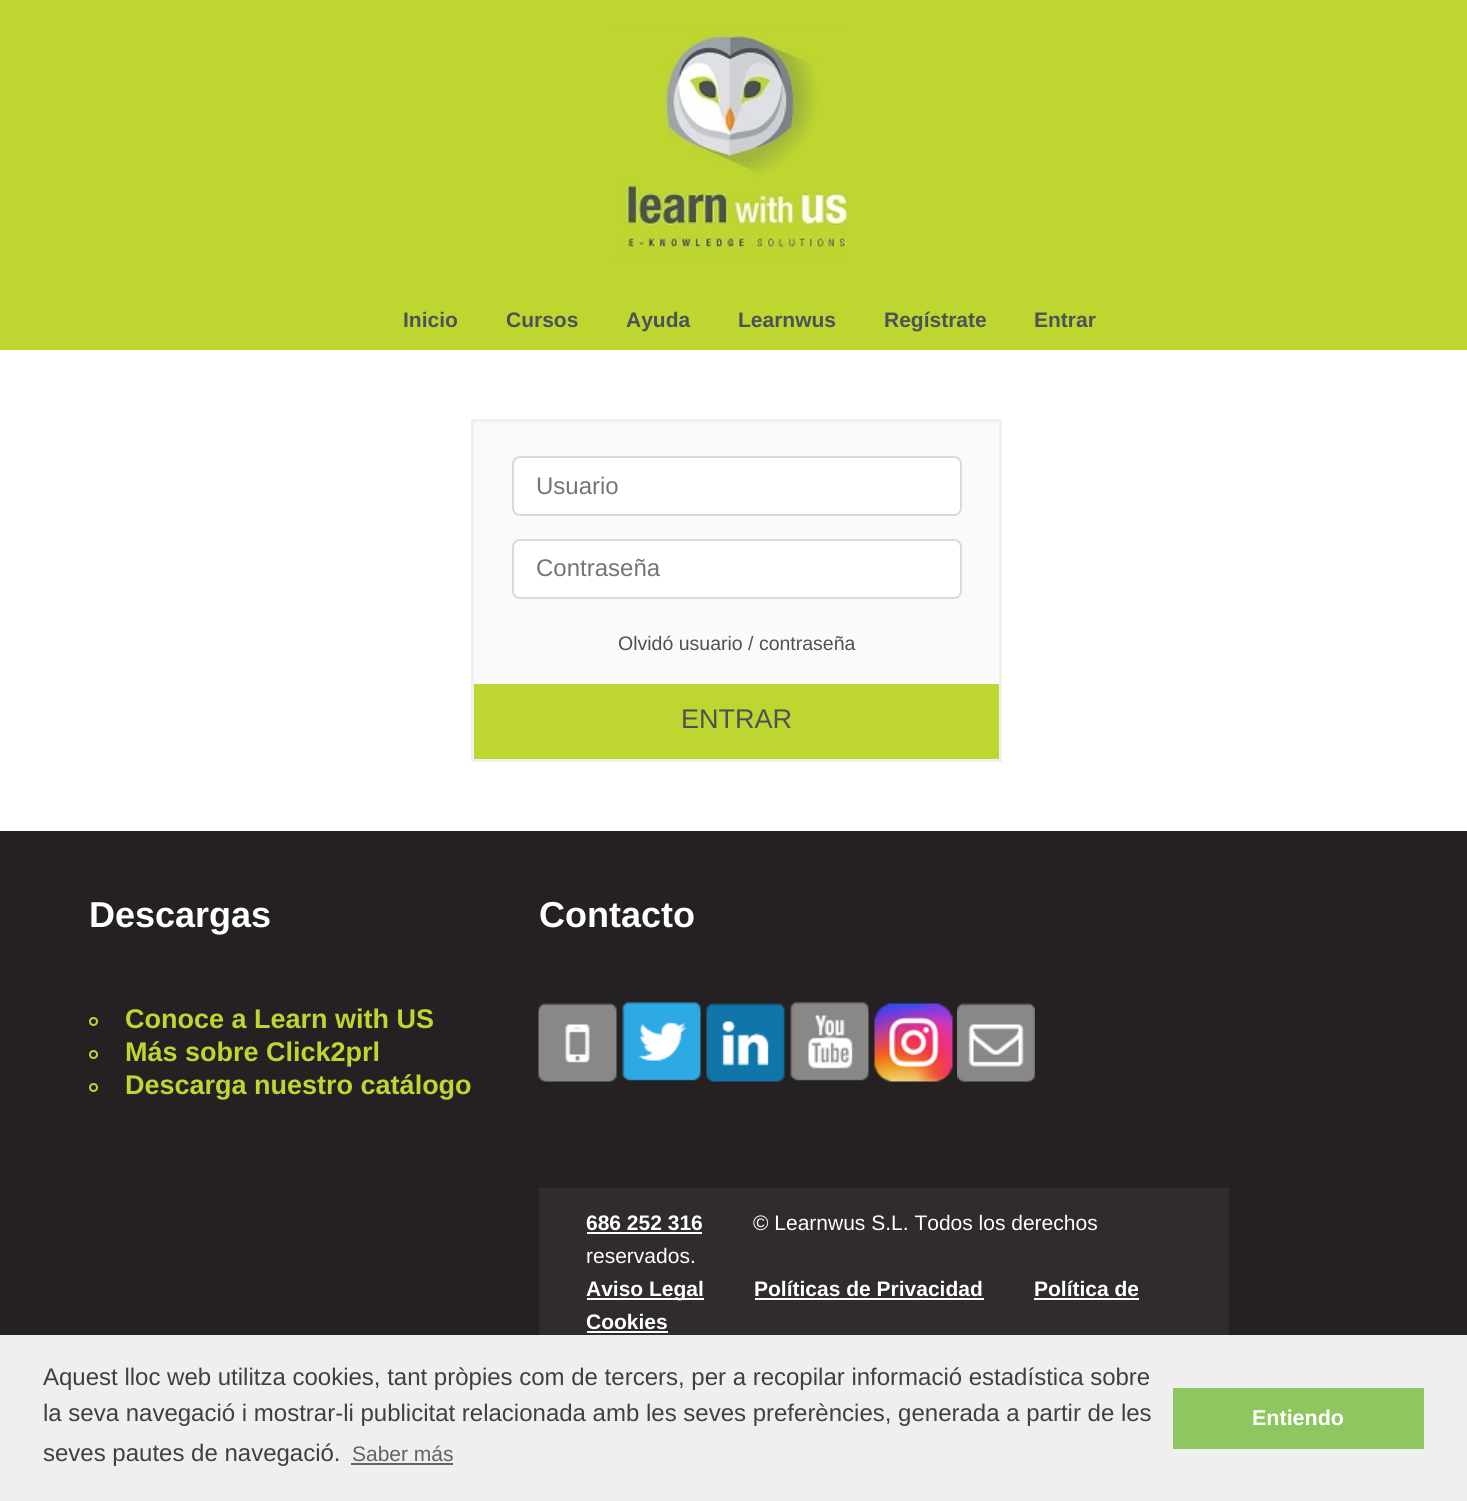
import math
import cairo

surface = cairo.ImageSurface(cairo.FORMAT_RGB24, 1467, 1501)
ctx = cairo.Context(surface)
options = cairo.FontOptions()
options.set_hint_metrics(cairo.HINT_METRICS_OFF)
options.set_hint_style(cairo.HINT_STYLE_NONE)
ctx.set_font_options(options)
ctx.set_miter_limit(4)


def set_color(code):
    ctx.set_source_rgb(*(v / 255 for v in bytes.fromhex(code[-6:])))


def draw_text(x, y, s, family, size, color, bold=False, italic=False):
    ctx.select_font_face(family, cairo.FONT_SLANT_ITALIC if italic else cairo.FONT_SLANT_NORMAL, cairo.FONT_WEIGHT_BOLD if bold else cairo.FONT_WEIGHT_NORMAL)
    ctx.set_font_size(size)
    set_color(color)
    ctx.move_to(x, y)
    ctx.show_text(s)


def fill_rect(x, y, w, h, color):
    set_color(color)
    ctx.rectangle(x, y, w, h)
    ctx.fill()


def rounded_rect(x, y, w, h, r):
    ctx.new_sub_path()
    for i, (u, v) in enumerate([(x + w - r, y + h - r), (x + r, y + h - r), (x + r, y + r), (x + w - r, y + r)]):
        ctx.arc(u, v, r, i * math.pi / 2, (i + 1) * math.pi / 2)
    ctx.close_path()


def draw_image(path, x, y, w, h):
    ctx.save()
    ctx.set_source_surface(cairo.ImageSurface.create_from_png(path), x, y)
    ctx.rectangle(x, y, w, h)
    ctx.fill()
    ctx.restore()


set_color("#ffffff")
ctx.paint()
fill_rect(0, 0, 1467, 350, "#bfd630")
draw_image("assets/img1.png", 610, 24, 238, 241)
draw_text(403, 327, "Inicio", "Liberation Sans", 21, "#4b5258", bold=True)
draw_text(506, 327, "Cursos", "Liberation Sans", 21, "#4b5258", bold=True)
draw_text(626, 327, "Ayuda", "Liberation Sans", 21, "#4b5258", bold=True)
draw_text(738, 327, "Learnwus", "Liberation Sans", 21, "#4b5258", bold=True)
draw_text(884, 327, "Regístrate", "Liberation Sans", 21, "#4b5258", bold=True)
draw_text(1034, 327, "Entrar", "Liberation Sans", 21, "#4b5258", bold=True)
fill_rect(474, 422, 525, 262, "#fafafa")
ctx.rectangle(472.5, 420.5, 528, 340)
set_color("#f0f0f0")
ctx.set_line_width(3)
ctx.stroke()
set_color("#ffffff")
rounded_rect(513, 457, 448, 58, 7)
ctx.fill_preserve()
set_color("#dadada")
ctx.set_line_width(2)
ctx.stroke()
draw_text(536, 494, "Usuario", "Liberation Sans", 24, "#757575")
set_color("#ffffff")
rounded_rect(513, 540, 448, 58, 7)
ctx.fill_preserve()
set_color("#dadada")
ctx.stroke()
draw_text(536, 576, "Contraseña", "Liberation Sans", 24, "#757575")
draw_text(618, 650, "Olvidó usuario / contraseña", "Liberation Sans", 19.5, "#4b5258")
fill_rect(474, 684, 525, 75, "#bfd630")
draw_text(681, 728, "ENTRAR", "Liberation Sans", 27, "#4b5258")
fill_rect(0, 831, 1467, 504, "#252122")
draw_text(89, 927, "Descargas", "Liberation Sans", 36, "#ffffff", bold=True)
ctx.new_path()
ctx.arc(93.5, 1021.5, 3.5, 0, 2 * math.pi)
set_color("#bfd630")
ctx.stroke()
draw_text(125, 1028, "Conoce a Learn with US", "Liberation Sans", 27, "#bfd630", bold=True)
ctx.new_path()
ctx.arc(93.5, 1054.5, 3.5, 0, 2 * math.pi)
ctx.stroke()
draw_text(125, 1061, "Más sobre Click2prl", "Liberation Sans", 27, "#bfd630", bold=True)
ctx.new_path()
ctx.arc(93.5, 1087.5, 3.5, 0, 2 * math.pi)
ctx.stroke()
draw_text(125, 1094, "Descarga nuestro catálogo", "Liberation Sans", 27, "#bfd630", bold=True)
draw_text(539, 927, "Contacto", "Liberation Sans", 36, "#ffffff", bold=True)
draw_image("assets/img2.png", 538, 1003, 79, 79)
draw_image("assets/img3.png", 622, 1002, 79, 79)
draw_image("assets/img4.png", 706, 1003, 79, 79)
draw_image("assets/img5.png", 790, 1002, 79, 79)
draw_image("assets/img6.png", 874, 1003, 79, 79)
draw_image("assets/img7.png", 957, 1003, 78, 79)
fill_rect(539, 1188, 690, 147, "#302c2d")
draw_text(586, 1230, "686 252 316", "Liberation Sans", 21, "#ffffff", bold=True)
fill_rect(587, 1232, 115, 2, "#ffffff")
draw_text(753, 1230, "© Learnwus S.L. Todos los derechos", "Liberation Sans", 21, "#ffffff")
draw_text(586, 1263, "reservados.", "Liberation Sans", 21, "#ffffff")
fill_rect(587, 1298, 117, 2, "#ffffff")
draw_text(586, 1296, "Aviso Legal", "Liberation Sans", 21, "#ffffff", bold=True)
draw_text(754, 1296, "Políticas de Privacidad", "Liberation Sans", 21, "#ffffff", bold=True)
fill_rect(755, 1298, 229, 2, "#ffffff")
draw_text(1034, 1296, "Política de", "Liberation Sans", 21, "#ffffff", bold=True)
fill_rect(1034, 1298, 105, 2, "#ffffff")
draw_text(586, 1329, "Cookies", "Liberation Sans", 21, "#ffffff", bold=True)
fill_rect(587, 1331, 81, 2, "#ffffff")
fill_rect(0, 1335, 1467, 166, "#efefef")
draw_text(43, 1385, "Aquest lloc web utilitza cookies, tant pròpies com de tercers, per a recopilar informació estadística sobre", "Liberation Sans", 24, "#404040")
draw_text(43, 1421, "la seva navegació i mostrar-li publicitat relacionada amb les seves preferències, generada a partir de les", "Liberation Sans", 24, "#404040")
draw_text(43, 1461, "seves pautes de navegació.", "Liberation Sans", 24, "#404040")
draw_text(352, 1461, "Saber más", "Liberation Sans", 21, "#636363")
fill_rect(351, 1463, 102, 2, "#636363")
fill_rect(1173, 1388, 251, 61, "#8ec760")
draw_text(1252, 1425, "Entiendo", "Liberation Sans", 21.5, "#ffffff", bold=True)
surface.write_to_png("output.png")
